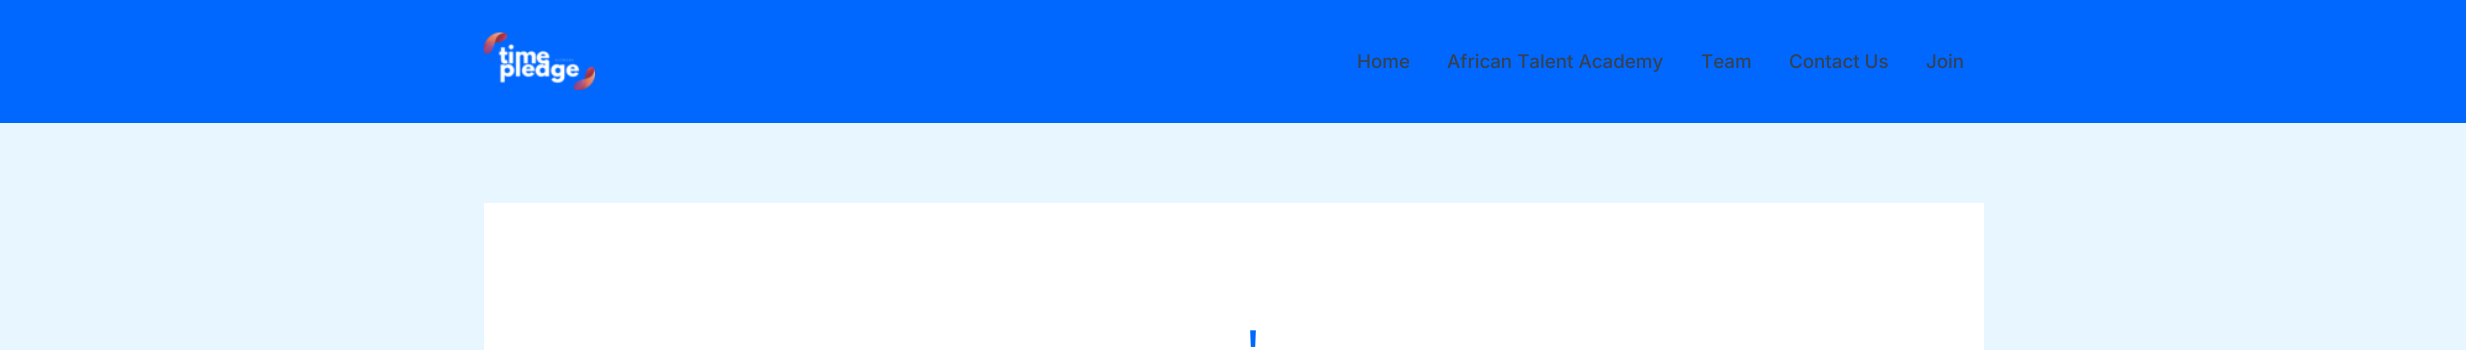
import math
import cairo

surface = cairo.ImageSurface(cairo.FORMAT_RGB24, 2466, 350)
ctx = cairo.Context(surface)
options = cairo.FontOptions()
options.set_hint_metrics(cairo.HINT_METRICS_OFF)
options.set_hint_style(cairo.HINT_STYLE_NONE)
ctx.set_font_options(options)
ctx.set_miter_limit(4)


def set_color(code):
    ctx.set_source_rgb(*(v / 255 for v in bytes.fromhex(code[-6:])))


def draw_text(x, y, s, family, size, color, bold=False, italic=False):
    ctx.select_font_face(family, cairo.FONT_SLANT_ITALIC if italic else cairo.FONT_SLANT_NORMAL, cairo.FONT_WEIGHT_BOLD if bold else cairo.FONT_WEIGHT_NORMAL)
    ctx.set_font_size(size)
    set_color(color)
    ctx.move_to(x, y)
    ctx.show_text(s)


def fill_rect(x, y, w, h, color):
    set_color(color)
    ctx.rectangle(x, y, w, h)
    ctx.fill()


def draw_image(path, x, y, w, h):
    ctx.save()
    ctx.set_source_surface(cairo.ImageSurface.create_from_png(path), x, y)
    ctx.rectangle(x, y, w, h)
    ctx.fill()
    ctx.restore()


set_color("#e7f6ff")
ctx.paint()
fill_rect(0, 0, 2466, 123, "#0067ff")
draw_image("assets/img1.png", 483, 32, 112, 58)
draw_text(1357, 68, "Home", "Inter Medium", 18.75, "#364151")
draw_text(1447, 68, "African Talent Academy", "Inter Medium", 18.75, "#364151")
draw_text(1701, 68, "Team", "Inter Medium", 18.75, "#364151")
draw_text(1789, 68, "Contact Us", "Inter Medium", 18.75, "#364151")
draw_text(1926, 68, "Join", "Inter Medium", 18.75, "#364151")
fill_rect(484, 203, 1500, 147, "#ffffff")
draw_text(1244, 374, "'", "Inter", 60, "#0067ff")
surface.write_to_png("output.png")
